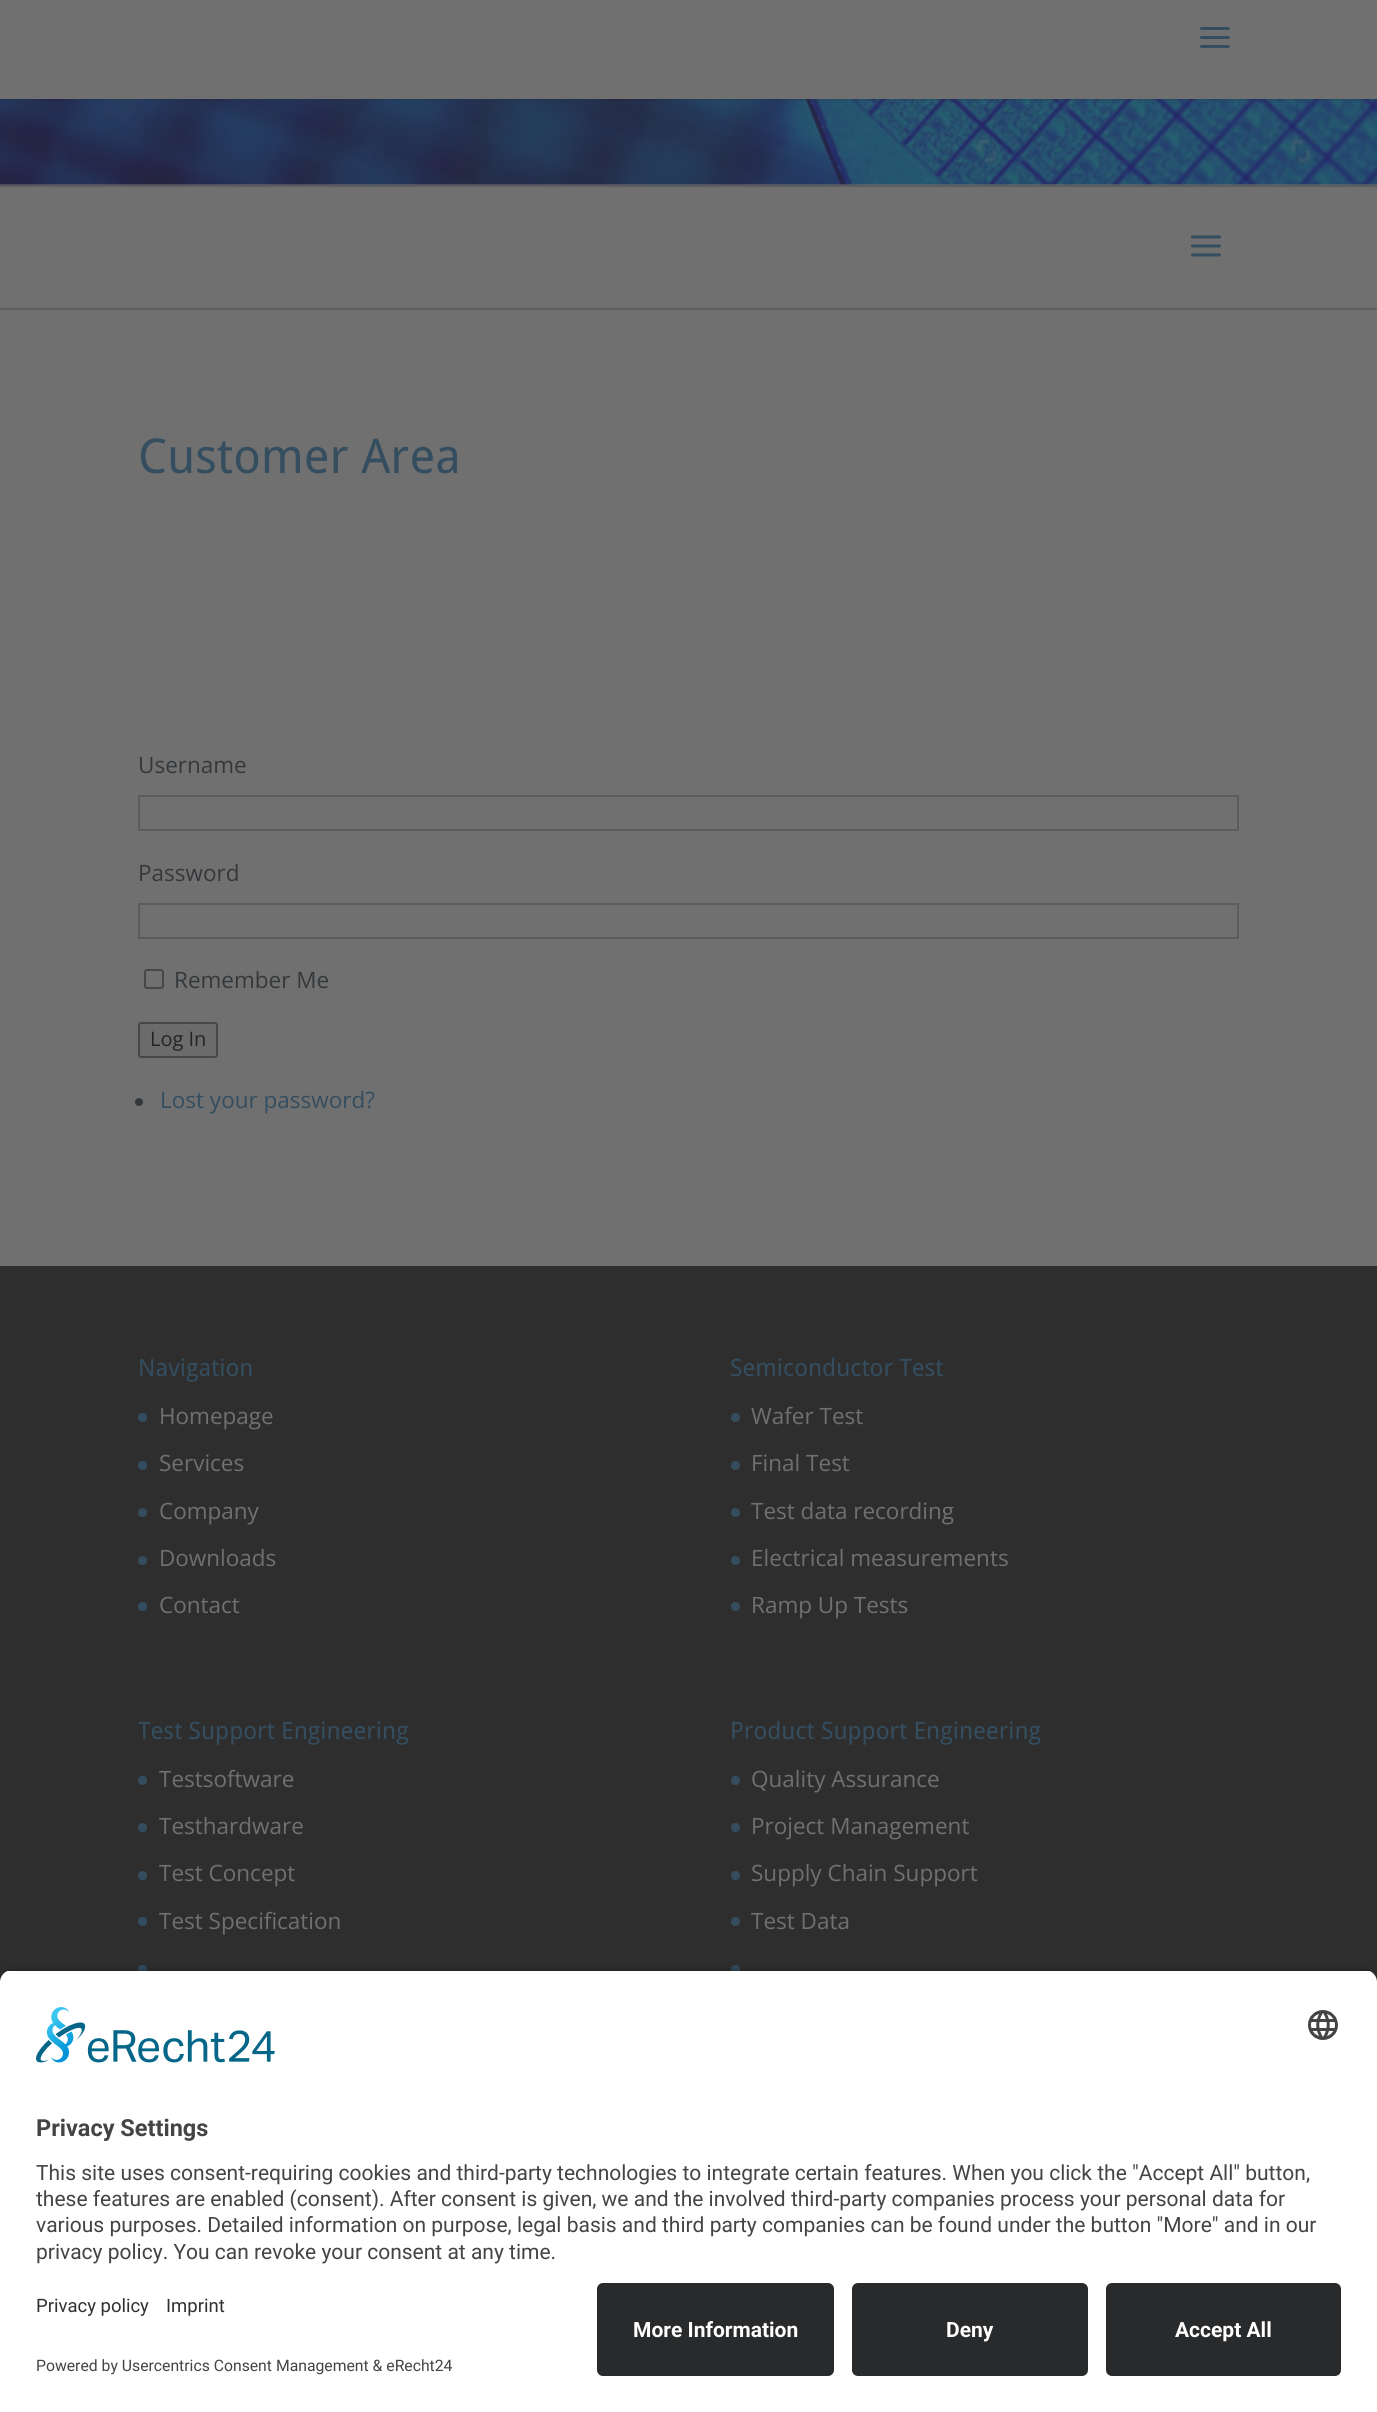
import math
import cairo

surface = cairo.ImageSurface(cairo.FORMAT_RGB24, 1377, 2412)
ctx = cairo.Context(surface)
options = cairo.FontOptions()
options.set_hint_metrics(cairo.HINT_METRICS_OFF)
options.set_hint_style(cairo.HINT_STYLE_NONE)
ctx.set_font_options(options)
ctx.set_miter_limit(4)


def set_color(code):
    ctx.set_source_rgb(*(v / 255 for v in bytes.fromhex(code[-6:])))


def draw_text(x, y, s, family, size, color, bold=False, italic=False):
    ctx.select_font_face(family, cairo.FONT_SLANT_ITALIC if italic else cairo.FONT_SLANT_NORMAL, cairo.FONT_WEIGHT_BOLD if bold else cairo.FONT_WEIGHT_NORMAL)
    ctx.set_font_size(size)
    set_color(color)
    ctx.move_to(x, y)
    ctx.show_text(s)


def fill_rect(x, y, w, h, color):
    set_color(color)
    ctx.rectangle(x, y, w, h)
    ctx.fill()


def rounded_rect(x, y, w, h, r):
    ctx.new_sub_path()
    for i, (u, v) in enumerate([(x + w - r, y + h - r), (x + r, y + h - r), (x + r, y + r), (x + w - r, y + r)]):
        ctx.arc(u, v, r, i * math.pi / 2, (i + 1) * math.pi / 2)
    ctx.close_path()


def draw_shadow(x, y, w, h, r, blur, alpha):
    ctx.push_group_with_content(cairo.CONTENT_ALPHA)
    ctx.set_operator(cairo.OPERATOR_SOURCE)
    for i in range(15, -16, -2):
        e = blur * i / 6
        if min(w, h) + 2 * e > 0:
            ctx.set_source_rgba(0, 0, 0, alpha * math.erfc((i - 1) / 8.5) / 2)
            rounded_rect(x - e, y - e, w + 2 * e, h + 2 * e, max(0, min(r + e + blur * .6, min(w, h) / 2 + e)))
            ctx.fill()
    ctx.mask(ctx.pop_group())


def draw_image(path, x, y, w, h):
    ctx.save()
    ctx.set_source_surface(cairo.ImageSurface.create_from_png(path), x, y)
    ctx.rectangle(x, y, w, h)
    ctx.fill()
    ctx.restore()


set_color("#707070")
ctx.paint()
draw_image("assets/img2.png", 0, 99, 1377, 86)
ctx.set_source_rgba(0.141, 0.141, 0.141, 0.1)
ctx.rectangle(0, 99, 1377, 2)
ctx.fill()
draw_image("assets/img1.png", 1200, 27, 30, 21)
fill_rect(0, 185, 1377, 2, "#5d5d5d")
fill_rect(0, 308, 1377, 2, "#5d5d5d")
draw_image("assets/img3.png", 1191, 235, 30, 22)
draw_text(138, 473, "Customer Area", "Droid Sans", 48, "#344d5f")
draw_text(138, 773, "Username", "Open Sans", 22.5, "#35383b")
ctx.rectangle(139, 796, 1099, 34)
set_color("#5c5c5c")
ctx.stroke()
draw_text(138, 881, "Password", "Open Sans", 22.5, "#35383b")
ctx.rectangle(139, 904, 1099, 34)
set_color("#5c5c5c")
ctx.stroke()
rounded_rect(145, 970, 18, 18, 2)
set_color("#474747")
ctx.stroke()
draw_text(174, 988, "Remember Me", "Open Sans", 22.5, "#35383b")
set_color("#6b6b6b")
rounded_rect(139, 1023, 78, 34, 2)
ctx.fill_preserve()
set_color("#474747")
ctx.stroke()
draw_text(150, 1046, "Log In", "Open Sans", 20, "#242424")
set_color("#35383b")
ctx.new_path()
ctx.arc(139, 1102, 4, 0, 2 * math.pi)
ctx.fill()
draw_text(160, 1108, "Lost your password?", "Open Sans", 22.5, "#344d5f")
fill_rect(0, 1266, 1377, 716, "#2e2e2e")
draw_text(138, 1376, "Navigation", "Droid Sans", 24, "#344d5f")
ctx.new_path()
ctx.arc(142.5, 1417.5, 4.5, 0, 2 * math.pi)
ctx.fill()
draw_text(159, 1424, "Homepage", "Open Sans", 22.5, "#707070")
set_color("#344d5f")
ctx.new_path()
ctx.arc(142.5, 1465.5, 4.5, 0, 2 * math.pi)
ctx.fill()
draw_text(159, 1471, "Services", "Open Sans", 22.5, "#707070")
set_color("#344d5f")
ctx.new_path()
ctx.arc(142.5, 1512.5, 4.5, 0, 2 * math.pi)
ctx.fill()
draw_text(159, 1519, "Company", "Open Sans", 22.5, "#707070")
set_color("#344d5f")
ctx.new_path()
ctx.arc(142.5, 1560.5, 4.5, 0, 2 * math.pi)
ctx.fill()
draw_text(159, 1566, "Downloads", "Open Sans", 22.5, "#707070")
set_color("#344d5f")
ctx.new_path()
ctx.arc(142.5, 1606.5, 4.5, 0, 2 * math.pi)
ctx.fill()
draw_text(159, 1613, "Contact", "Open Sans", 22.5, "#707070")
draw_text(730, 1376, "Semiconductor Test", "Droid Sans", 24, "#344d5f")
ctx.new_path()
ctx.arc(735.5, 1417.5, 4.5, 0, 2 * math.pi)
ctx.fill()
draw_text(751, 1424, "Wafer Test", "Open Sans", 22.5, "#707070")
set_color("#344d5f")
ctx.new_path()
ctx.arc(735.5, 1465.5, 4.5, 0, 2 * math.pi)
ctx.fill()
draw_text(751, 1471, "Final Test", "Open Sans", 22.5, "#707070")
set_color("#344d5f")
ctx.new_path()
ctx.arc(735.5, 1512.5, 4.5, 0, 2 * math.pi)
ctx.fill()
draw_text(751, 1519, "Test data recording", "Open Sans", 22.5, "#707070")
set_color("#344d5f")
ctx.new_path()
ctx.arc(735.5, 1560.5, 4.5, 0, 2 * math.pi)
ctx.fill()
draw_text(751, 1566, "Electrical measurements", "Open Sans", 22.5, "#707070")
set_color("#344d5f")
ctx.new_path()
ctx.arc(735.5, 1606.5, 4.5, 0, 2 * math.pi)
ctx.fill()
draw_text(751, 1613, "Ramp Up Tests", "Open Sans", 22.5, "#707070")
draw_text(138, 1739, "Test Support Engineering", "Droid Sans", 24, "#344d5f")
ctx.new_path()
ctx.arc(142.5, 1780.5, 4.5, 0, 2 * math.pi)
ctx.fill()
draw_text(159, 1787, "Testsoftware", "Open Sans", 22.5, "#707070")
set_color("#344d5f")
ctx.new_path()
ctx.arc(142.5, 1827.5, 4.5, 0, 2 * math.pi)
ctx.fill()
draw_text(159, 1834, "Testhardware", "Open Sans", 22.5, "#707070")
set_color("#344d5f")
ctx.new_path()
ctx.arc(142.5, 1875.5, 4.5, 0, 2 * math.pi)
ctx.fill()
draw_text(159, 1881, "Test Concept", "Open Sans", 22.5, "#707070")
set_color("#344d5f")
ctx.new_path()
ctx.arc(142.5, 1921.5, 4.5, 0, 2 * math.pi)
ctx.fill()
draw_text(159, 1929, "Test Specification", "Open Sans", 22.5, "#707070")
set_color("#344d5f")
ctx.new_path()
ctx.arc(142.5, 1969.5, 4.5, 0, 2 * math.pi)
ctx.fill()
draw_text(730, 1739, "Product Support Engineering", "Droid Sans", 24, "#344d5f")
ctx.new_path()
ctx.arc(735.5, 1780.5, 4.5, 0, 2 * math.pi)
ctx.fill()
draw_text(751, 1787, "Quality Assurance", "Open Sans", 22.5, "#707070")
set_color("#344d5f")
ctx.new_path()
ctx.arc(735.5, 1827.5, 4.5, 0, 2 * math.pi)
ctx.fill()
draw_text(751, 1834, "Project Management", "Open Sans", 22.5, "#707070")
set_color("#344d5f")
ctx.new_path()
ctx.arc(735.5, 1875.5, 4.5, 0, 2 * math.pi)
ctx.fill()
draw_text(751, 1881, "Supply Chain Support", "Open Sans", 22.5, "#707070")
set_color("#344d5f")
ctx.new_path()
ctx.arc(735.5, 1921.5, 4.5, 0, 2 * math.pi)
ctx.fill()
draw_text(751, 1929, "Test Data", "Open Sans", 22.5, "#707070")
set_color("#344d5f")
ctx.new_path()
ctx.arc(735.5, 1969.5, 4.5, 0, 2 * math.pi)
ctx.fill()
set_color("#000000")
draw_shadow(0, 1974, 1377, 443, 12, 5, 0.8)
ctx.save()
ctx.new_path()
ctx.move_to(12, 1970)
ctx.line_to(1365, 1970)
ctx.curve_to(1371.5, 1970, 1377, 1975.5, 1377, 1982)
ctx.line_to(1377, 2271)
ctx.line_to(0, 2271)
ctx.line_to(0, 1982)
ctx.curve_to(0, 1975.5, 5.5, 1970, 12, 1970)
ctx.close_path()
ctx.clip()
fill_rect(0, 1971, 1377, 300, "#ffffff")
ctx.restore()
draw_image("assets/img4.png", 36, 2007, 239, 56)
draw_image("assets/img5.png", 1308, 2010, 30, 30)
draw_text(36, 2136, "Privacy Settings", "Roboto", 23.5, "#444444", bold=True)
draw_text(36, 2180, "This site uses consent-requiring cookies and third-party technologies to integrate certain features. When you click the \"Accept All\" button,", "Roboto", 21, "#444444")
draw_text(36, 2206, "these features are enabled (consent). After consent is given, we and the involved third-party companies process your personal data for", "Roboto", 21, "#444444")
draw_text(36, 2232, "various purposes. Detailed information on purpose, legal basis and third party companies can be found under the button \"More\" and in our", "Roboto", 21, "#444444")
draw_text(36, 2259, "privacy policy. You can revoke your consent at any time.", "Roboto", 21, "#444444")
fill_rect(0, 2271, 1377, 141, "#ffffff")
draw_text(36, 2312, "Privacy policy", "Roboto", 18.5, "#303030")
draw_text(166, 2312, "Imprint", "Roboto", 18.5, "#303030")
draw_text(36, 2371, "Powered by Usercentrics Consent Management & eRecht24", "Roboto", 15.75, "#444444")
set_color("#292a2b")
rounded_rect(597, 2283, 237, 93, 6)
ctx.fill()
draw_text(633, 2337, "More Information", "Roboto", 21, "#ffffff", bold=True)
set_color("#292a2b")
rounded_rect(852, 2283, 236, 93, 6)
ctx.fill()
draw_text(946, 2337, "Deny", "Roboto", 21, "#ffffff", bold=True)
set_color("#292a2b")
rounded_rect(1106, 2283, 235, 93, 6)
ctx.fill()
draw_text(1175, 2337, "Accept All", "Roboto", 21, "#ffffff", bold=True)
surface.write_to_png("output.png")
